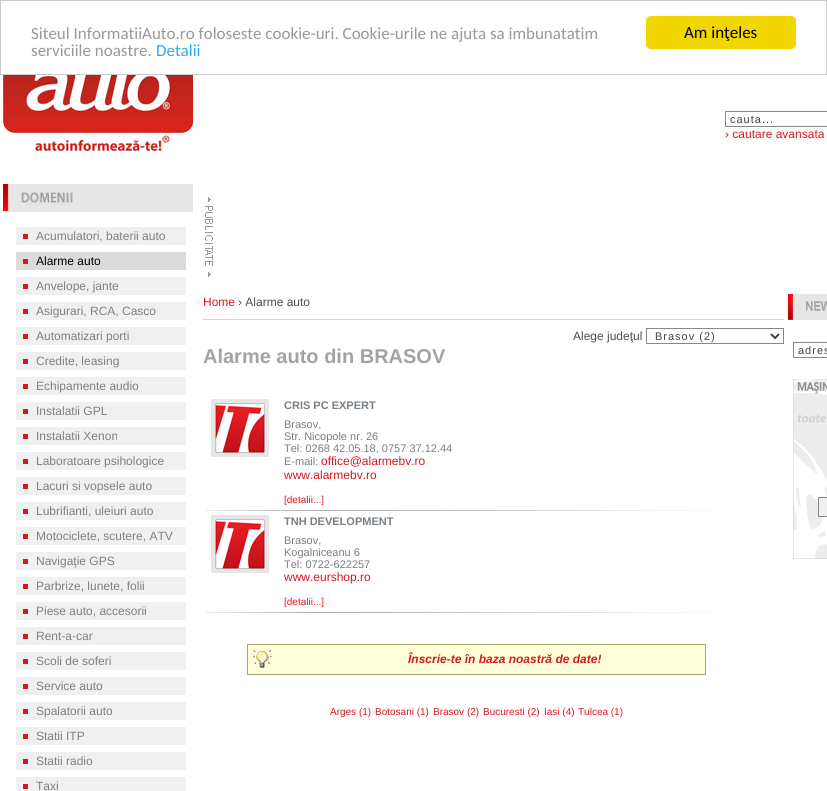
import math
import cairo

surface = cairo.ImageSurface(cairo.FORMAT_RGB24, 827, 791)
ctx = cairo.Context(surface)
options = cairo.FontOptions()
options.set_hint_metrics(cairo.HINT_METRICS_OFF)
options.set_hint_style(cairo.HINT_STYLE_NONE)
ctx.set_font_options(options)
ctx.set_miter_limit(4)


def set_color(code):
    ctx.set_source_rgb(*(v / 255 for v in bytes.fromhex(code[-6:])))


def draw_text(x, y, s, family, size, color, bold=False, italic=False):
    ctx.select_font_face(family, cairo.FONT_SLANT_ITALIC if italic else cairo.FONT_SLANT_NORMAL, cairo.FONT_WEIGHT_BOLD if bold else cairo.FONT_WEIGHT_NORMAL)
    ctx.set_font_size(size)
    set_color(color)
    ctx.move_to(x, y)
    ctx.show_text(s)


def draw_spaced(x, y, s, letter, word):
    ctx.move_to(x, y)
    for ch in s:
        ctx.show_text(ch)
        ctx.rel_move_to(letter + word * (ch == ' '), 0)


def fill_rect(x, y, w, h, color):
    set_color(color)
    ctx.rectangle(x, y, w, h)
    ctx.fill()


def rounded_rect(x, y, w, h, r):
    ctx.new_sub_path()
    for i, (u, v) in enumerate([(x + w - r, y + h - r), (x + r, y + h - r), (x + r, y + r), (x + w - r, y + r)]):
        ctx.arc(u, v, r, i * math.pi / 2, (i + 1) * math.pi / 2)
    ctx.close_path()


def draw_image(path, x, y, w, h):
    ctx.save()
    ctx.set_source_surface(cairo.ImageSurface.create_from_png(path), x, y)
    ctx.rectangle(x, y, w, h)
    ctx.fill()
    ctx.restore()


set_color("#ffffff")
ctx.paint()
ctx.rectangle(0.5, 0.5, 826, 74)
set_color("#cccccc")
ctx.set_line_width(1)
ctx.stroke()
draw_text(31, 39, "Siteul InformatiiAuto.ro foloseste cookie-uri. Cookie-urile ne ajuta sa imbunatatim", "Carlito", 17, "#999999")
draw_text(31, 56, "serviciile noastre.", "Carlito", 17, "#999999")
draw_text(156, 56, "Detalii", "Carlito", 17, "#31a8f0")
set_color("#f1d600")
rounded_rect(646, 16, 150, 33, 5)
ctx.fill()
draw_text(684, 38, "Am inţeles", "Carlito", 17, "#000000")
draw_image("assets/img1.png", 3, 75, 190, 76)
ctx.rectangle(725.5, 111.5, 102, 15)
set_color("#888888")
ctx.stroke()
ctx.select_font_face("Liberation Sans")
ctx.set_font_size(11)
set_color("#444444")
draw_spaced(730, 123, "cauta...", 1, 0)
draw_text(725, 138, "› cautare avansata", "Liberation Sans", 12, "#d7181f")
draw_image("assets/img2.png", 3, 184, 190, 28)
fill_rect(16, 227, 170, 18, "#f0f0f0")
fill_rect(23, 234, 5, 5, "#d7181f")
draw_text(36, 240, "Acumulatori, baterii auto", "Liberation Sans", 12, "#808080")
fill_rect(16, 252, 170, 18, "#dbdbdc")
fill_rect(23, 259, 5, 5, "#d7181f")
draw_text(36, 265, "Alarme auto", "Liberation Sans", 12, "#000000")
fill_rect(16, 277, 170, 18, "#f0f0f0")
fill_rect(23, 284, 5, 5, "#d7181f")
draw_text(36, 290, "Anvelope, jante", "Liberation Sans", 12, "#808080")
fill_rect(16, 302, 170, 18, "#f0f0f0")
fill_rect(23, 309, 5, 5, "#d7181f")
draw_text(36, 315, "Asigurari, RCA, Casco", "Liberation Sans", 12, "#808080")
fill_rect(16, 327, 170, 18, "#f0f0f0")
fill_rect(23, 334, 5, 5, "#d7181f")
draw_text(36, 340, "Automatizari porti", "Liberation Sans", 12, "#808080")
fill_rect(16, 352, 170, 18, "#f0f0f0")
fill_rect(23, 359, 5, 5, "#d7181f")
draw_text(36, 365, "Credite, leasing", "Liberation Sans", 12, "#808080")
fill_rect(16, 377, 170, 18, "#f0f0f0")
fill_rect(23, 384, 5, 5, "#d7181f")
draw_text(36, 390, "Echipamente audio", "Liberation Sans", 12, "#808080")
fill_rect(16, 402, 170, 18, "#f0f0f0")
fill_rect(23, 409, 5, 5, "#d7181f")
draw_text(36, 415, "Instalatii GPL", "Liberation Sans", 12, "#808080")
fill_rect(16, 427, 170, 18, "#f0f0f0")
fill_rect(23, 434, 5, 5, "#d7181f")
draw_text(36, 440, "Instalatii Xenon", "Liberation Sans", 12, "#808080")
fill_rect(16, 452, 170, 18, "#f0f0f0")
fill_rect(23, 459, 5, 5, "#d7181f")
draw_text(36, 465, "Laboratoare psihologice", "Liberation Sans", 12, "#808080")
fill_rect(16, 477, 170, 18, "#f0f0f0")
fill_rect(23, 484, 5, 5, "#d7181f")
draw_text(36, 490, "Lacuri si vopsele auto", "Liberation Sans", 12, "#808080")
fill_rect(16, 502, 170, 18, "#f0f0f0")
fill_rect(23, 509, 5, 5, "#d7181f")
draw_text(36, 515, "Lubrifianti, uleiuri auto", "Liberation Sans", 12, "#808080")
fill_rect(16, 527, 170, 18, "#f0f0f0")
fill_rect(23, 534, 5, 5, "#d7181f")
draw_text(36, 540, "Motociclete, scutere, ATV", "Liberation Sans", 12, "#808080")
fill_rect(16, 552, 170, 18, "#f0f0f0")
fill_rect(23, 559, 5, 5, "#d7181f")
draw_text(36, 565, "Navigaţie GPS", "Liberation Sans", 12, "#808080")
fill_rect(16, 577, 170, 18, "#f0f0f0")
fill_rect(23, 584, 5, 5, "#d7181f")
draw_text(36, 590, "Parbrize, lunete, folii", "Liberation Sans", 12, "#808080")
fill_rect(16, 602, 170, 18, "#f0f0f0")
fill_rect(23, 609, 5, 5, "#d7181f")
draw_text(36, 615, "Piese auto, accesorii", "Liberation Sans", 12, "#808080")
fill_rect(16, 627, 170, 18, "#f0f0f0")
fill_rect(23, 634, 5, 5, "#d7181f")
draw_text(36, 640, "Rent-a-car", "Liberation Sans", 12, "#808080")
fill_rect(16, 652, 170, 18, "#f0f0f0")
fill_rect(23, 659, 5, 5, "#d7181f")
draw_text(36, 665, "Scoli de soferi", "Liberation Sans", 12, "#808080")
fill_rect(16, 677, 170, 18, "#f0f0f0")
fill_rect(23, 684, 5, 5, "#d7181f")
draw_text(36, 690, "Service auto", "Liberation Sans", 12, "#808080")
fill_rect(16, 702, 170, 18, "#f0f0f0")
fill_rect(23, 709, 5, 5, "#d7181f")
draw_text(36, 715, "Spalatorii auto", "Liberation Sans", 12, "#808080")
fill_rect(16, 727, 170, 18, "#f0f0f0")
fill_rect(23, 734, 5, 5, "#d7181f")
draw_text(36, 740, "Statii ITP", "Liberation Sans", 12, "#808080")
fill_rect(16, 752, 170, 18, "#f0f0f0")
fill_rect(23, 759, 5, 5, "#d7181f")
draw_text(36, 765, "Statii radio", "Liberation Sans", 12, "#808080")
fill_rect(16, 777, 170, 14, "#f0f0f0")
fill_rect(23, 784, 5, 5, "#d7181f")
draw_text(36, 790, "Taxi", "Liberation Sans", 12, "#808080")
draw_image("assets/img3.png", 205, 197, 8, 80)
draw_text(203, 306, "Home", "Liberation Sans", 12, "#d7181f")
draw_text(238, 306, "› Alarme auto", "Liberation Sans", 12, "#4d4d4d")
fill_rect(203, 319, 581, 1, "#d5d5d5")
draw_text(573, 340, "Alege judeţul", "Liberation Sans", 12, "#4d4d4d")
ctx.rectangle(646.5, 328.5, 137, 15)
set_color("#888888")
ctx.stroke()
ctx.new_path()
ctx.move_to(771, 334)
ctx.line_to(775, 338)
ctx.line_to(779, 334)
set_color("#444444")
ctx.set_line_width(2)
ctx.stroke()
ctx.set_font_size(11)
draw_spaced(655, 340, "Brasov (2)", 1, 0)
draw_text(203, 363, "Alarme auto din BRASOV", "Liberation Sans", 20, "#a7a2a2", bold=True)
fill_rect(211, 399, 58, 58, "#e6e6e6")
draw_image("assets/img4.png", 215, 403, 50, 50)
draw_text(284, 409, "CRIS PC EXPERT", "Liberation Sans", 11, "#787f85", bold=True)
draw_text(284, 428, "Brasov,", "Liberation Sans", 11, "#787f85")
draw_text(284, 440, "Str. Nicopole nr. 26", "Liberation Sans", 11, "#787f85")
draw_text(284, 452, "Tel: 0268 42.05.18, 0757 37.12.44", "Liberation Sans", 11, "#787f85")
draw_text(284, 465, "E-mail:", "Liberation Sans", 11, "#787f85")
draw_text(321, 465, "office@alarmebv.ro", "Liberation Sans", 12, "#d7181f")
draw_text(284, 479, "www.alarmebv.ro", "Liberation Sans", 12, "#d7181f")
draw_text(284, 503, "[detalii...]", "Liberation Sans", 10, "#d7181f")
draw_image("assets/img5.png", 206, 510, 508, 1)
fill_rect(211, 515, 58, 58, "#e6e6e6")
draw_image("assets/img4.png", 215, 519, 50, 50)
draw_text(284, 525, "TNH DEVELOPMENT", "Liberation Sans", 11, "#787f85", bold=True)
draw_text(284, 544, "Brasov,", "Liberation Sans", 11, "#787f85")
draw_text(284, 556, "Kogalniceanu 6", "Liberation Sans", 11, "#787f85")
draw_text(284, 568, "Tel: 0722-622257", "Liberation Sans", 11, "#787f85")
draw_text(284, 581, "www.eurshop.ro", "Liberation Sans", 12, "#d7181f")
draw_text(284, 605, "[detalii...]", "Liberation Sans", 10, "#d7181f")
draw_image("assets/img5.png", 206, 612, 508, 1)
fill_rect(247, 644, 459, 31, "#a7a772")
fill_rect(248, 645, 457, 29, "#ffffd9")
draw_image("assets/img6.png", 253, 650, 19, 18)
draw_text(408, 663, "Înscrie-te în baza noastră de date!", "Liberation Sans", 12, "#d7181f", bold=True, italic=True)
draw_text(330, 715, "Arges (1)", "Liberation Sans", 10, "#d7181f")
draw_text(375, 715, "Botosani (1)", "Liberation Sans", 10, "#d7181f")
draw_text(433, 715, "Brasov (2)", "Liberation Sans", 10, "#d7181f")
draw_text(483, 715, "Bucuresti (2)", "Liberation Sans", 10, "#d7181f")
draw_text(544, 715, "Iasi (4)", "Liberation Sans", 10, "#d7181f")
draw_text(578, 715, "Tulcea (1)", "Liberation Sans", 10, "#d7181f")
draw_image("assets/img7.png", 788, 294, 39, 26)
ctx.rectangle(793.5, 342.5, 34, 15)
set_color("#888888")
ctx.set_line_width(1)
ctx.stroke()
ctx.set_font_size(11)
set_color("#444444")
draw_spaced(798, 354, "adres", 1, 0)
draw_image("assets/img8.png", 793, 379, 34, 180)
set_color("#efefef")
ctx.rectangle(818.5, 497.5, 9, 19)
ctx.fill_preserve()
set_color("#888888")
ctx.stroke()
surface.write_to_png("output.png")
